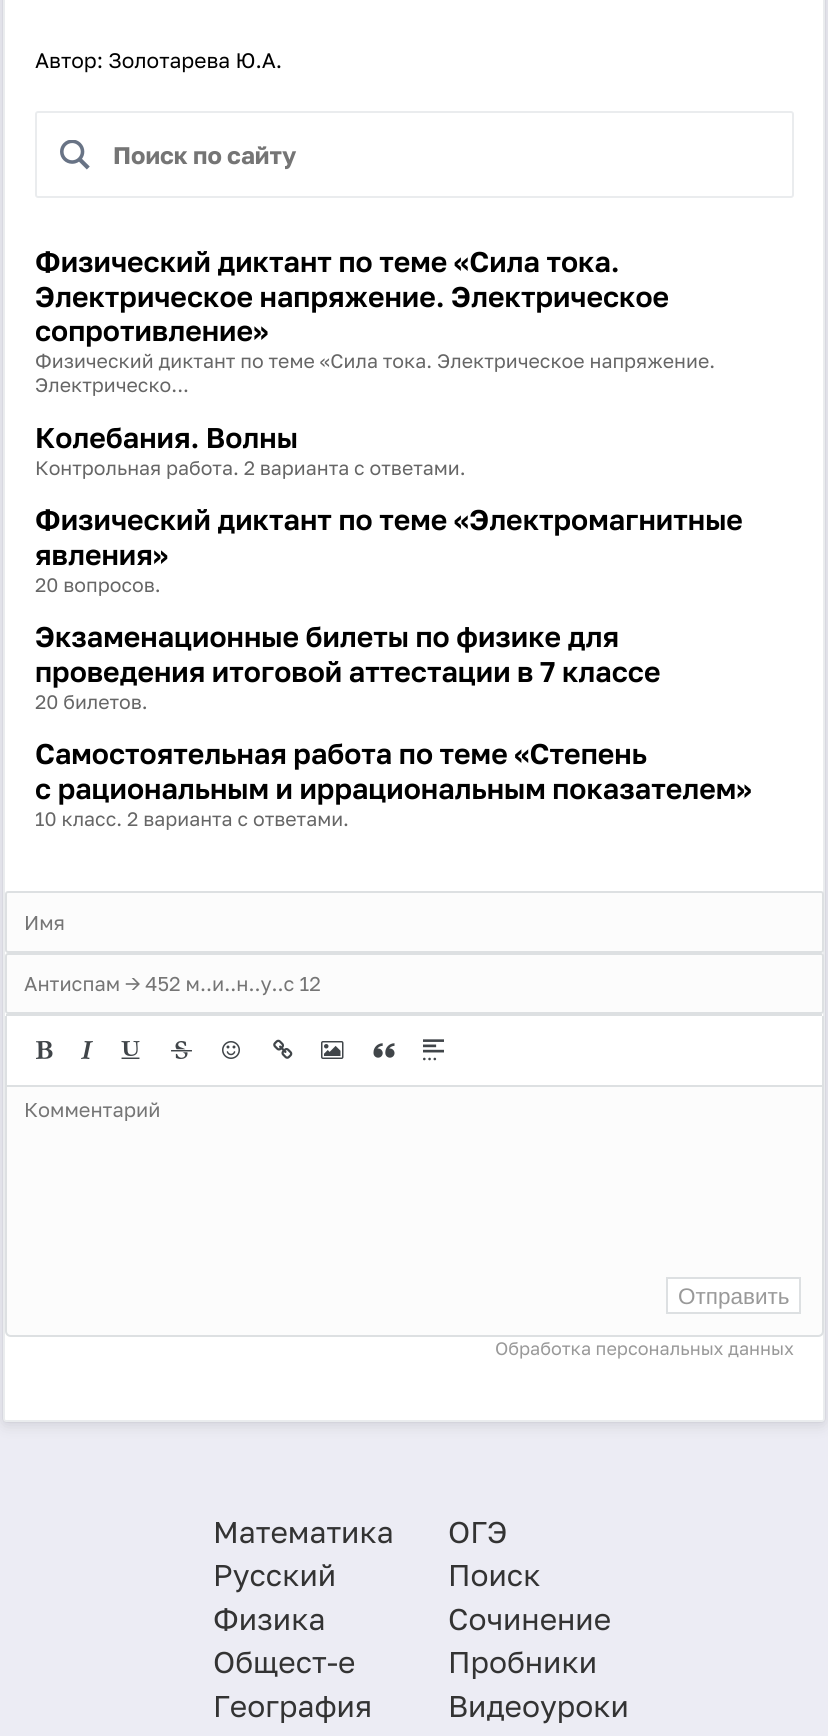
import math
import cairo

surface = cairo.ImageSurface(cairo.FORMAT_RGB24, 828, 1736)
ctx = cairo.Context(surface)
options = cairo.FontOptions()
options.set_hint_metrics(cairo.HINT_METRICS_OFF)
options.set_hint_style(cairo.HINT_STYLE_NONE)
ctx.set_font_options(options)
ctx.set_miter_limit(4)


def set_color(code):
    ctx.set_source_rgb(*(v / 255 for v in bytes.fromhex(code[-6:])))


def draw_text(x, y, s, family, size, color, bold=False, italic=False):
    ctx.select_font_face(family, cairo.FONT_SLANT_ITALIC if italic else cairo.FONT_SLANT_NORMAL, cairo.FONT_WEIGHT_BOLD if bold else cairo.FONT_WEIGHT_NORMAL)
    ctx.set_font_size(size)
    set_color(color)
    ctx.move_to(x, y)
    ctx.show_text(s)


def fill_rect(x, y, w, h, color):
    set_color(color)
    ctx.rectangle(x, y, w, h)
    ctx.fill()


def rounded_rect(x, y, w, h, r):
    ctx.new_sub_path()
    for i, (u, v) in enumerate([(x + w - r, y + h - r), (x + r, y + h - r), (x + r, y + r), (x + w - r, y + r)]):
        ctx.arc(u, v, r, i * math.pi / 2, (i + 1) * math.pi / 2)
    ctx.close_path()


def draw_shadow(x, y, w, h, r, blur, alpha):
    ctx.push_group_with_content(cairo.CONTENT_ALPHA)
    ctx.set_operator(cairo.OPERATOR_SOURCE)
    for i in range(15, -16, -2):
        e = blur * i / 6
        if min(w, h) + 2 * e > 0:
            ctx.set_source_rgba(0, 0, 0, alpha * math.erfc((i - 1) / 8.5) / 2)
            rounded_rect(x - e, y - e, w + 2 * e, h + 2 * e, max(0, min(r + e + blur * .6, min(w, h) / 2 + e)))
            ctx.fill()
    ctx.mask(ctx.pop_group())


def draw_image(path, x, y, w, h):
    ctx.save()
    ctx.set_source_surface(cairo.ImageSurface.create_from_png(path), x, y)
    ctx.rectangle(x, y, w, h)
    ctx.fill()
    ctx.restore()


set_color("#ececf4")
ctx.paint()
set_color("#000000")
draw_shadow(3, -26, 822, 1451, 3, 7.5, 0.12)
draw_shadow(3, -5, 822, 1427, 3, 0.5, 0.12)
set_color("#ffffff")
rounded_rect(4, -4, 820, 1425, 2)
ctx.fill_preserve()
set_color("#eaecee")
ctx.stroke()
draw_text(35, 68, "Автор: Золотарева Ю.А.", "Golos", 21, "#000000")
rounded_rect(36, 112, 757, 85, 2)
set_color("#eaecee")
ctx.stroke()
draw_image("assets/img1.png", 60, 140, 30, 30)
draw_text(113, 164, "Поиск по сайту", "Golos", 24, "#757575", bold=True)
draw_text(35, 272, "Физический диктант по теме «Сила тока.", "Golos SemiBold", 28.5, "#000000")
draw_text(35, 307, "Электрическое напряжение. Электрическое", "Golos SemiBold", 28.5, "#000000")
draw_text(35, 341, "сопротивление»", "Golos SemiBold", 28.5, "#000000")
draw_text(35, 368, "Физический диктант по теме «Сила тока. Электрическое напряжение.", "Golos", 19.5, "#666666")
draw_text(35, 392, "Электрическо...", "Golos", 19.5, "#666666")
draw_text(35, 448, "Колебания. Волны", "Golos SemiBold", 28.5, "#000000")
draw_text(35, 475, "Контрольная работа. 2 варианта с ответами.", "Golos", 19.5, "#666666")
draw_text(35, 530, "Физический диктант по теме «Электромагнитные", "Golos SemiBold", 28.5, "#000000")
draw_text(35, 565, "явления»", "Golos SemiBold", 28.5, "#000000")
draw_text(35, 592, "20 вопросов.", "Golos", 19.5, "#666666")
draw_text(35, 647, "Экзаменационные билеты по физике для", "Golos SemiBold", 28.5, "#000000")
draw_text(35, 682, "проведения итоговой аттестации в 7 классе", "Golos SemiBold", 28.5, "#000000")
draw_text(35, 709, "20 билетов.", "Golos", 19.5, "#666666")
draw_text(35, 764, "Самостоятельная работа по теме «Степень", "Golos SemiBold", 28.5, "#000000")
draw_text(35, 799, "с рациональным и иррациональным показателем»", "Golos SemiBold", 28.5, "#000000")
draw_text(35, 826, "10 класс. 2 варианта с ответами.", "Golos", 19.5, "#666666")
set_color("#fcfcfc")
rounded_rect(6, 892, 817, 60, 2)
ctx.fill_preserve()
set_color("#dde0e2")
ctx.stroke()
draw_text(24, 930, "Имя", "Golos", 20, "#757575")
set_color("#fcfcfc")
rounded_rect(6, 954, 817, 59, 2)
ctx.fill_preserve()
set_color("#dde0e2")
ctx.stroke()
draw_text(24, 991, "Антиспам → 452 м..и..н..у..с 12", "Golos", 20, "#757575")
fill_rect(6, 1014, 816, 2, "#dde0e2")
fill_rect(822, 1016, 2, 69, "#dde0e2")
fill_rect(5, 1016, 2, 69, "#dde0e2")
draw_image("assets/img2.png", 36, 1041, 17, 18)
draw_image("assets/img3.png", 81, 1041, 12, 18)
draw_image("assets/img4.png", 121, 1041, 19, 18)
draw_image("assets/img5.png", 171, 1041, 21, 18)
draw_image("assets/img6.png", 222, 1041, 18, 18)
draw_image("assets/img7.png", 273, 1039, 20, 20)
draw_image("assets/img8.png", 321, 1041, 23, 18)
draw_image("assets/img9.png", 373, 1043, 22, 15)
draw_image("assets/img10.png", 423, 1039, 21, 22)
set_color("#fcfcfc")
ctx.new_path()
ctx.move_to(6, 1086)
ctx.line_to(823, 1086)
ctx.line_to(823, 1331)
ctx.curve_to(823, 1334, 821, 1336, 818, 1336)
ctx.line_to(11, 1336)
ctx.curve_to(8, 1336, 6, 1334, 6, 1331)
ctx.close_path()
ctx.fill_preserve()
set_color("#dde0e2")
ctx.stroke()
draw_text(24, 1117, "Комментарий", "Golos", 20, "#757575")
set_color("#ffffff")
ctx.rectangle(667, 1278, 133, 35)
ctx.fill_preserve()
set_color("#dde0e2")
ctx.stroke()
draw_text(678, 1304, "Отправить", "Liberation Sans", 22.5, "#999999")
draw_text(495, 1355, "Обработка персональных данных", "Golos", 18, "#999999")
draw_text(213, 1543, "Математика", "Golos", 30, "#333333")
draw_text(213, 1586, "Русский", "Golos", 30, "#333333")
draw_text(213, 1630, "Физика", "Golos", 30, "#333333")
draw_text(213, 1673, "Общест-е", "Golos", 30, "#333333")
draw_text(213, 1717, "География", "Golos", 30, "#333333")
draw_text(448, 1543, "ОГЭ", "Golos", 30, "#333333")
draw_text(448, 1586, "Поиск", "Golos", 30, "#333333")
draw_text(448, 1630, "Сочинение", "Golos", 30, "#333333")
draw_text(448, 1673, "Пробники", "Golos", 30, "#333333")
draw_text(448, 1717, "Видеоуроки", "Golos", 30, "#333333")
surface.write_to_png("output.png")
